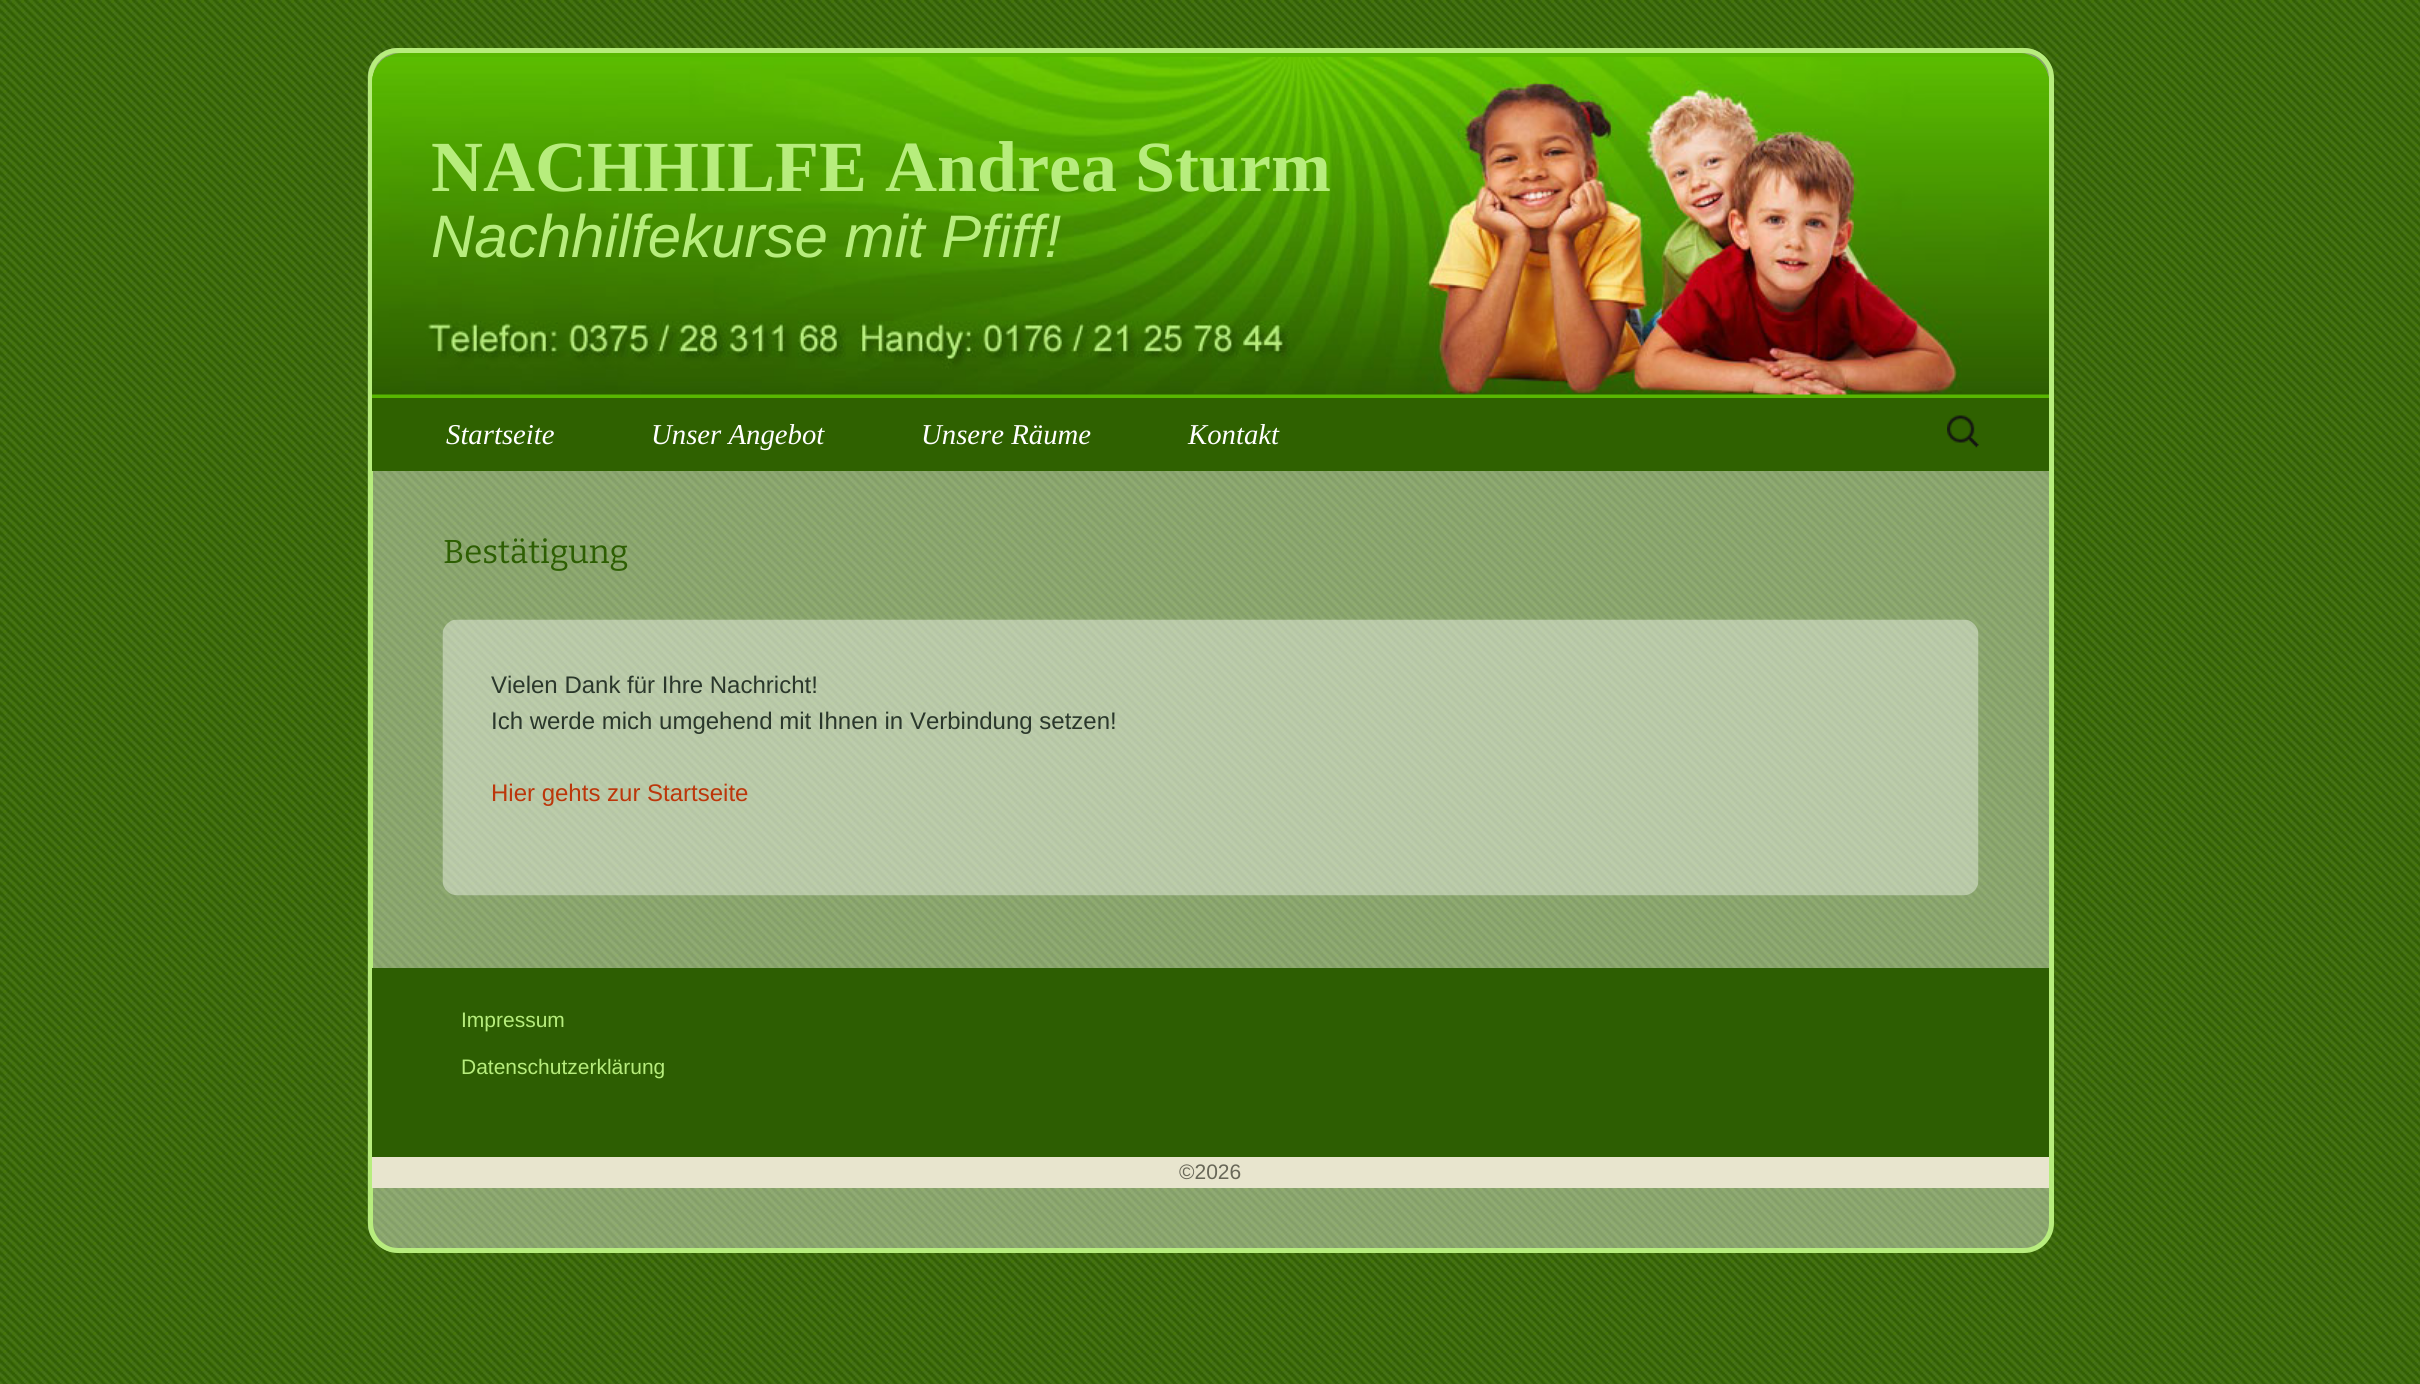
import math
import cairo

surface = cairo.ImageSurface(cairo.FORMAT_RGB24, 2420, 1384)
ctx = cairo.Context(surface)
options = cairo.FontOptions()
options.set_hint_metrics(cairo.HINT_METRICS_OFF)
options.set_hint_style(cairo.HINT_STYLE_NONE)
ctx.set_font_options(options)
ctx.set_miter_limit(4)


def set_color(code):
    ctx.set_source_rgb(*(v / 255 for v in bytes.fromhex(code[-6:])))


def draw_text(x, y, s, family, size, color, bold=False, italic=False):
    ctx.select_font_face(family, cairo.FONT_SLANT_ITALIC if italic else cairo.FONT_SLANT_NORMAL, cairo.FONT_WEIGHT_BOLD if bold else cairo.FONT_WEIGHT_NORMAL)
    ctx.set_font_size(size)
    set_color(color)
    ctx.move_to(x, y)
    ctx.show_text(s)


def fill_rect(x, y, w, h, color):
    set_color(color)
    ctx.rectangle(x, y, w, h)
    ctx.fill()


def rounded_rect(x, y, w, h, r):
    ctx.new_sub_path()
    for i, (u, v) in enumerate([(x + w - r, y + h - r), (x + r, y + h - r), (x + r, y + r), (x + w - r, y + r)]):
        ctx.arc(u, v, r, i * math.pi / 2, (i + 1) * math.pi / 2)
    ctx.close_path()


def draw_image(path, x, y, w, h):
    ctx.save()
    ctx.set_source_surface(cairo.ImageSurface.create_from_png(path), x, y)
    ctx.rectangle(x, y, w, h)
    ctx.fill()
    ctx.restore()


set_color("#ffffff")
ctx.paint()
draw_image("assets/img1.png", 0, 0, 2420, 1384)
draw_image("assets/img2.png", 367, 48, 1687, 1205)
rounded_rect(370.5, 50.5, 1681, 1200, 27.5)
set_color("#b7ed7d")
ctx.set_line_width(5)
ctx.stroke()
set_color("#58b701")
ctx.new_path()
ctx.move_to(402, 53)
ctx.line_to(2019, 53)
ctx.curve_to(2035.5, 53, 2049, 66.5, 2049, 83)
ctx.line_to(2049, 471)
ctx.line_to(372, 471)
ctx.line_to(372, 83)
ctx.curve_to(372, 66.5, 385.5, 53, 402, 53)
ctx.close_path()
ctx.fill()
draw_image("assets/img3.png", 372, 57, 1677, 338)
draw_text(431, 191, "NACHHILFE Andrea Sturm", "Liberation Serif", 72, "#b7ed7d", bold=True)
draw_text(431, 257, "Nachhilfekurse mit Pfiff!", "Liberation Sans", 60, "#b7ed7d", italic=True)
fill_rect(372, 398, 1677, 73, "#2f6100")
draw_text(446, 444, "Startseite", "Liberation Serif", 28.75, "#ffffff", italic=True)
draw_text(651, 444, "Unser Angebot", "Liberation Serif", 28.75, "#ffffff", italic=True)
draw_text(921, 444, "Unsere Räume", "Liberation Serif", 28.75, "#ffffff", italic=True)
draw_text(1188, 444, "Kontakt", "Liberation Serif", 28.75, "#ffffff", italic=True)
draw_image("assets/img4.png", 1947, 415, 32, 33)
draw_text(443, 563, "Bestätigung", "Bitter", 33, "#2d5e02")
draw_image("assets/img5.png", 442, 619, 1537, 277)
draw_text(491, 693, "Vielen Dank für Ihre Nachricht!", "Liberation Sans", 24, "#2a372b")
draw_text(491, 729, "Ich werde mich umgehend mit Ihnen in Verbindung setzen!", "Liberation Sans", 24, "#2a372b")
draw_text(491, 801, "Hier gehts zur Startseite", "Liberation Sans", 24, "#bc360a")
fill_rect(372, 1157, 1677, 31, "#e8e5ce")
fill_rect(372, 968, 1677, 189, "#2d5e02")
draw_text(461, 1027, "Impressum", "Liberation Sans", 21, "#b7ed7d")
draw_text(461, 1074, "Datenschutzerklärung", "Liberation Sans", 21, "#b7ed7d")
draw_text(1179, 1179, "©2026", "Liberation Sans", 21, "#686758")
surface.write_to_png("output.png")
